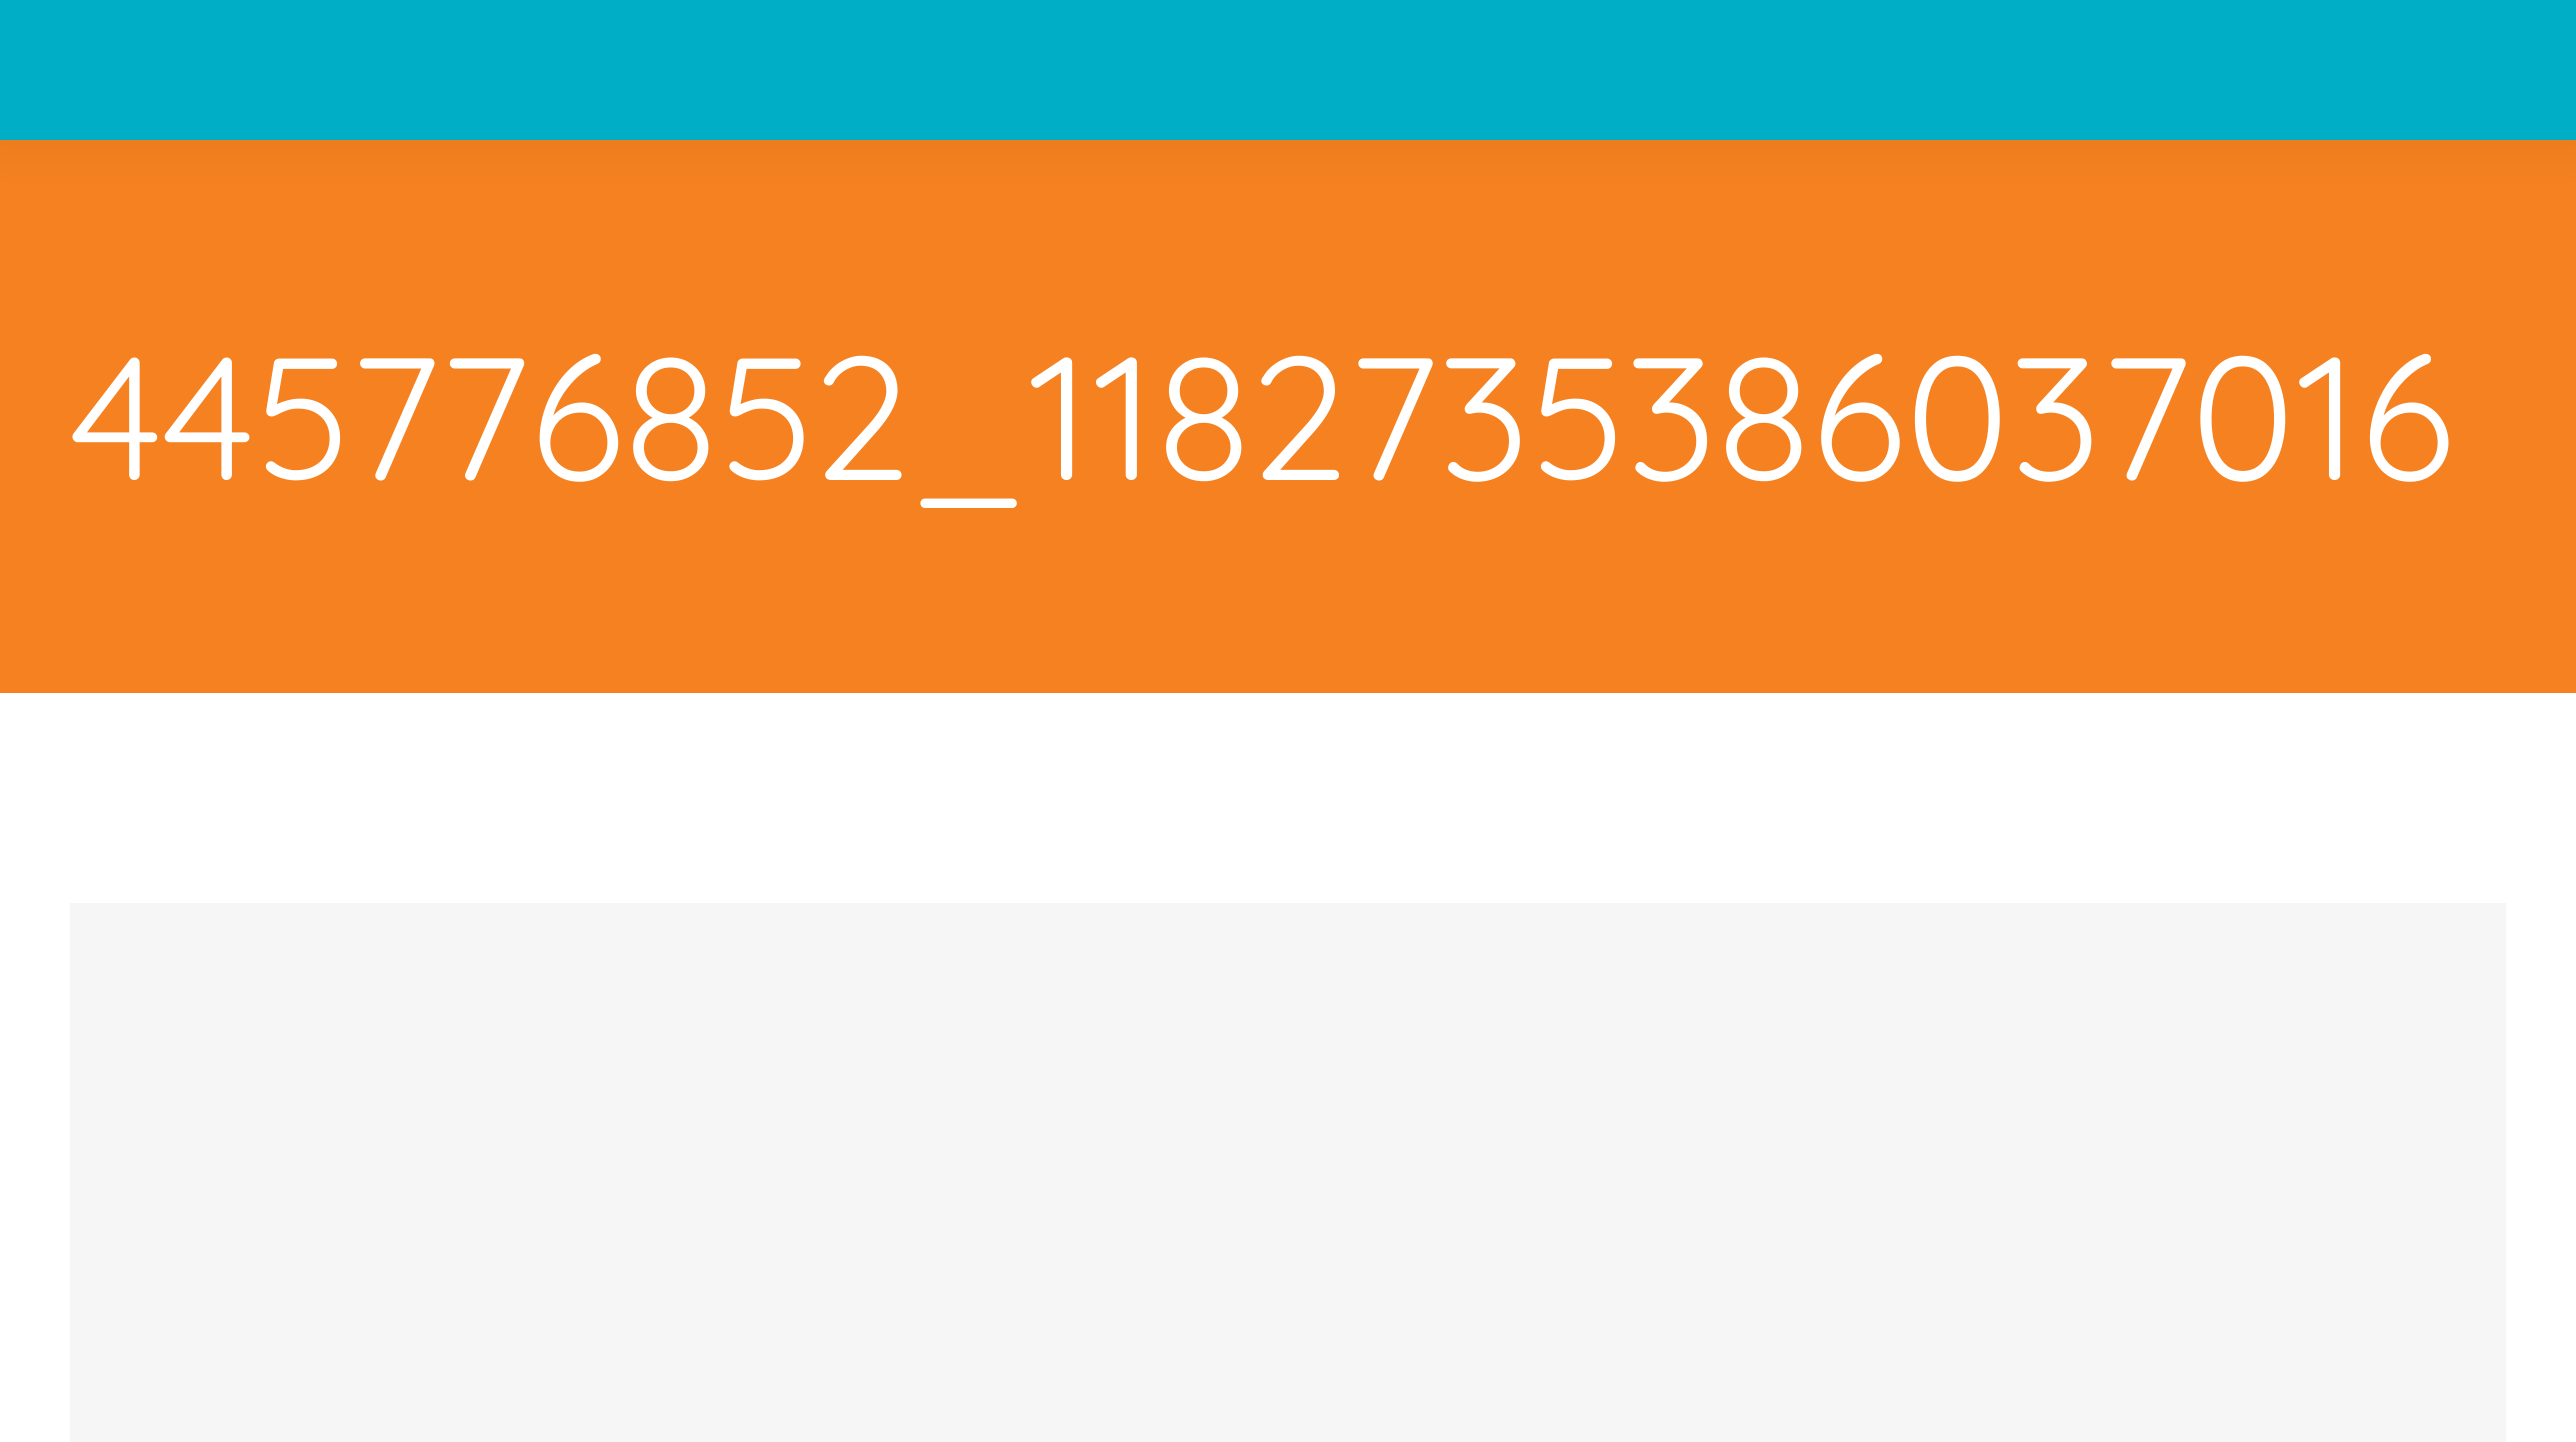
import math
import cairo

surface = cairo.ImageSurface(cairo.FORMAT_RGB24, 2576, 1442)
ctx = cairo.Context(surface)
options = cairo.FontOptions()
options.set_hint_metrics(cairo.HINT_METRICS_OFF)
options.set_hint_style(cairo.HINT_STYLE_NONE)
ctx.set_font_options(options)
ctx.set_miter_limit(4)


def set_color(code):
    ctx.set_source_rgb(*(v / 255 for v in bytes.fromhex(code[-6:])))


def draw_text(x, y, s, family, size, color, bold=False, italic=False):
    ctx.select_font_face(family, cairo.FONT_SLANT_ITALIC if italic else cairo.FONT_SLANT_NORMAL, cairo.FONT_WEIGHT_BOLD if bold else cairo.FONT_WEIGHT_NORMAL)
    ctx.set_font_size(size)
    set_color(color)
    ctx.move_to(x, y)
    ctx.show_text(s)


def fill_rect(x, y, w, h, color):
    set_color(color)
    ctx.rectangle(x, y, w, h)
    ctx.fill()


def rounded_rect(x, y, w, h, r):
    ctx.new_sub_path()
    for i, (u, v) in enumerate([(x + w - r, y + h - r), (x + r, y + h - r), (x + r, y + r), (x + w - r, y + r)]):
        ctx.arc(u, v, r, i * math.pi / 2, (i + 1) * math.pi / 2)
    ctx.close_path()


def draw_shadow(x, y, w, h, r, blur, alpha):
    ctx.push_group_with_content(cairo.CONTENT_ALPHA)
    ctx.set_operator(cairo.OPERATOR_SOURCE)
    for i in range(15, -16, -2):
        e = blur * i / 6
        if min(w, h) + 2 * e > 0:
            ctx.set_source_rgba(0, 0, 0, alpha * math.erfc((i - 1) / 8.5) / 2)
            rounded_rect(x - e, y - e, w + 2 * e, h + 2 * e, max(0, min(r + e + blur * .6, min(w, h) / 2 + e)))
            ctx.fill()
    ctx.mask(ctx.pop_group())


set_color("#ffffff")
ctx.paint()
fill_rect(0, 140, 2576, 553, "#f58120")
set_color("#000000")
draw_shadow(-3, -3, 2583, 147, 0, 26, 0.07)
fill_rect(0, 0, 2576, 140, "#00aec5")
draw_text(70, 480, "445776852_1182735386037016", "Quicksand", 175, "#ffffff")
fill_rect(70, 903, 2436, 539, "#f6f6f6")
surface.write_to_png("output.png")
